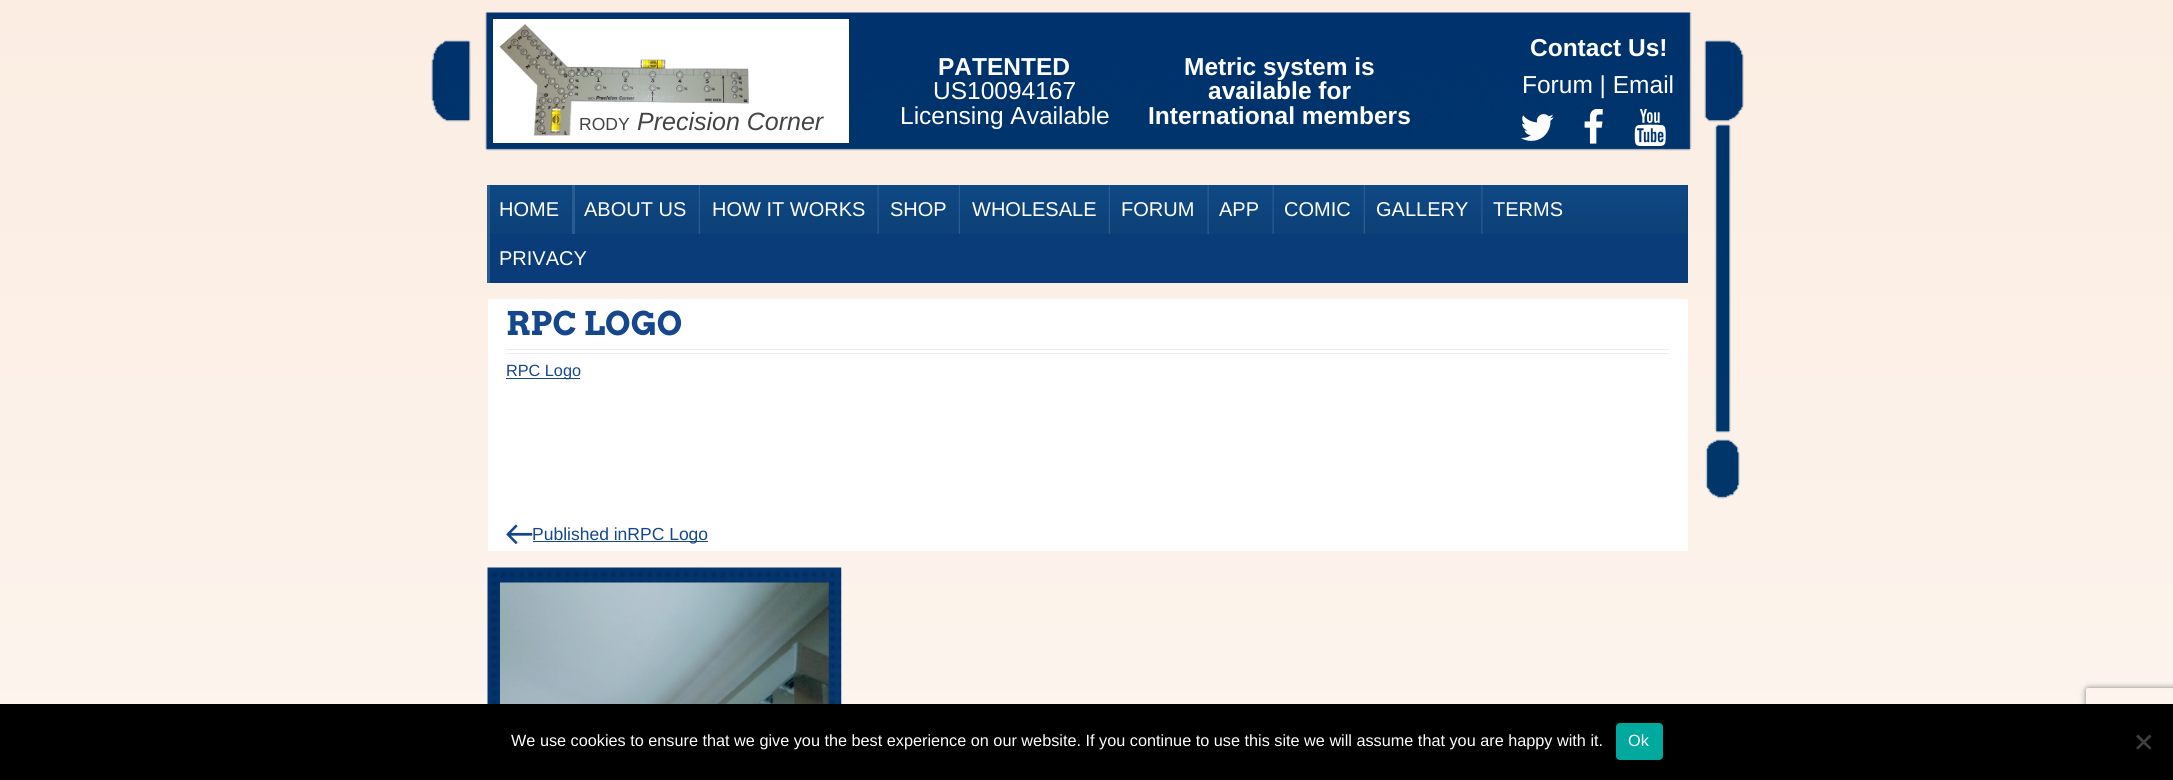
import math
import cairo

surface = cairo.ImageSurface(cairo.FORMAT_RGB24, 2173, 780)
ctx = cairo.Context(surface)
options = cairo.FontOptions()
options.set_hint_metrics(cairo.HINT_METRICS_OFF)
options.set_hint_style(cairo.HINT_STYLE_NONE)
ctx.set_font_options(options)
ctx.set_miter_limit(4)


def set_color(code):
    ctx.set_source_rgb(*(v / 255 for v in bytes.fromhex(code[-6:])))


def draw_text(x, y, s, family, size, color, bold=False, italic=False):
    ctx.select_font_face(family, cairo.FONT_SLANT_ITALIC if italic else cairo.FONT_SLANT_NORMAL, cairo.FONT_WEIGHT_BOLD if bold else cairo.FONT_WEIGHT_NORMAL)
    ctx.set_font_size(size)
    set_color(color)
    ctx.move_to(x, y)
    ctx.show_text(s)


def fill_rect(x, y, w, h, color):
    set_color(color)
    ctx.rectangle(x, y, w, h)
    ctx.fill()


def rounded_rect(x, y, w, h, r):
    ctx.new_sub_path()
    for i, (u, v) in enumerate([(x + w - r, y + h - r), (x + r, y + h - r), (x + r, y + r), (x + w - r, y + r)]):
        ctx.arc(u, v, r, i * math.pi / 2, (i + 1) * math.pi / 2)
    ctx.close_path()


def draw_shadow(x, y, w, h, r, blur, alpha):
    ctx.push_group_with_content(cairo.CONTENT_ALPHA)
    ctx.set_operator(cairo.OPERATOR_SOURCE)
    for i in range(15, -16, -2):
        e = blur * i / 6
        if min(w, h) + 2 * e > 0:
            ctx.set_source_rgba(0, 0, 0, alpha * math.erfc((i - 1) / 8.5) / 2)
            rounded_rect(x - e, y - e, w + 2 * e, h + 2 * e, max(0, min(r + e + blur * .6, min(w, h) / 2 + e)))
            ctx.fill()
    ctx.mask(ctx.pop_group())


def draw_image(path, x, y, w, h):
    ctx.save()
    ctx.set_source_surface(cairo.ImageSurface.create_from_png(path), x, y)
    ctx.rectangle(x, y, w, h)
    ctx.fill()
    ctx.restore()


set_color("#ffffff")
ctx.paint()
gradient = cairo.LinearGradient(1087, 0, 1087, 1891)
gradient.add_color_stop_rgba(0, 0.984, 0.929, 0.886, 1)
gradient.add_color_stop_rgba(1, 1, 1, 1, 1)
ctx.set_source(gradient)
ctx.rectangle(0, 0, 2173, 704)
ctx.fill()
draw_image("assets/img1.png", 431, 12, 1313, 487)
fill_rect(493, 19, 356, 124, "#ffffff")
draw_image("assets/img2.png", 499, 24, 250, 112)
draw_text(579, 130, "RODY", "Liberation Sans", 17.5, "#444444")
draw_text(637, 130, "Precision Corner", "Liberation Sans", 25, "#444444", italic=True)
draw_text(938, 75, "PATENTED", "Liberation Sans", 24.5, "#ffffff", bold=True)
draw_text(933, 99, "US10094167", "Liberation Sans", 24.5, "#ffffff")
draw_text(900, 124, "Licensing Available", "Liberation Sans", 24.5, "#ffffff")
draw_text(1184, 75, "Metric system is", "Liberation Sans", 24.5, "#ffffff", bold=True)
draw_text(1208, 99, "available for", "Liberation Sans", 24.5, "#ffffff", bold=True)
draw_text(1148, 124, "International members", "Liberation Sans", 24.5, "#ffffff", bold=True)
draw_text(1530, 56, "Contact Us!", "Liberation Sans", 24.5, "#ffffff", bold=True)
draw_text(1522, 93, "Forum | Email", "Liberation Sans", 24.5, "#ffffff")
draw_image("assets/img3.png", 1521, 114, 33, 27)
draw_image("assets/img4.png", 1584, 109, 19, 35)
draw_image("assets/img5.png", 1634, 109, 32, 37)
fill_rect(490, 185, 1198, 98, "#0b3c7a")
draw_image("assets/img6.png", 490, 185, 1198, 49)
fill_rect(487, 185, 3, 98, "#295c92")
draw_text(499, 216, "HOME", "Liberation Sans", 20, "#ffffff")
fill_rect(572, 185, 3, 49, "#295c92")
draw_text(584, 216, "ABOUT US", "Liberation Sans", 20, "#ffffff")
draw_image("assets/img7.png", 698, 185, 2, 49)
draw_text(712, 216, "HOW IT WORKS", "Liberation Sans", 20, "#ffffff")
draw_image("assets/img8.png", 877, 185, 2, 49)
draw_text(890, 216, "SHOP", "Liberation Sans", 20, "#ffffff")
draw_image("assets/img7.png", 958, 185, 2, 49)
draw_text(972, 216, "WHOLESALE", "Liberation Sans", 20, "#ffffff")
draw_image("assets/img7.png", 1108, 185, 2, 49)
draw_text(1121, 216, "FORUM", "Liberation Sans", 20, "#ffffff")
draw_image("assets/img8.png", 1207, 185, 2, 49)
draw_text(1219, 216, "APP", "Liberation Sans", 20, "#ffffff")
draw_image("assets/img8.png", 1272, 185, 2, 49)
draw_text(1284, 216, "COMIC", "Liberation Sans", 20, "#ffffff")
draw_image("assets/img7.png", 1363, 185, 2, 49)
draw_text(1376, 216, "GALLERY", "Liberation Sans", 20, "#ffffff")
draw_image("assets/img9.png", 1481, 185, 2, 49)
draw_text(1493, 216, "TERMS", "Liberation Sans", 20, "#ffffff")
draw_text(499, 265, "PRIVACY", "Liberation Sans", 20, "#ffffff")
fill_rect(488, 299, 1200, 252, "#ffffff")
fill_rect(506, 349, 1163, 1, "#ededed")
fill_rect(506, 353, 1163, 1, "#ededed")
draw_text(506, 335, "RPC LOGO", "Arvo", 32.5, "#16478c", bold=True)
fill_rect(506, 378, 74, 1, "#16478c")
draw_text(506, 376, "RPC Logo", "Liberation Sans", 16.25, "#16478c")
draw_image("assets/img10.png", 506, 524, 27, 21)
fill_rect(533, 541, 175, 1, "#16478c")
draw_text(532, 540, "Published inRPC Logo", "Liberation Sans", 17.5, "#16478c")
draw_image("assets/img11.png", 487, 567, 355, 137)
draw_image("assets/img12.png", 500, 582, 329, 122)
ctx.save()
ctx.set_fill_rule(cairo.FILL_RULE_EVEN_ODD)
ctx.new_path()
ctx.move_to(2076, 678)
ctx.line_to(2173, 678)
ctx.line_to(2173, 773)
ctx.line_to(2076, 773)
ctx.close_path()
ctx.move_to(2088.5, 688)
ctx.line_to(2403.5, 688)
ctx.curve_to(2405, 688, 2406, 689, 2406, 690.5)
ctx.line_to(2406, 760.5)
ctx.curve_to(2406, 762, 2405, 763, 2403.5, 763)
ctx.line_to(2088.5, 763)
ctx.curve_to(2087, 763, 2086, 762, 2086, 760.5)
ctx.line_to(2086, 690.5)
ctx.curve_to(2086, 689, 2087, 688, 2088.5, 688)
ctx.close_path()
ctx.clip()
set_color("#808080")
draw_shadow(2086, 688, 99, 75, 2.5, 3, 1)
ctx.restore()
fill_rect(0, 704, 2173, 76, "#000000")
draw_text(511, 746, "We use cookies to ensure that we give you the best experience on our website. If you continue to use this site we will assume that you are happy with it.", "Liberation Sans", 16.25, "#ffffff")
set_color("#00a99d")
rounded_rect(1616, 723, 47, 37, 4)
ctx.fill()
draw_text(1628, 746, "Ok", "Liberation Sans", 16.25, "#ffffff")
set_color("#404040")
ctx.new_path()
ctx.move_to(2149.5, 734.5)
ctx.line_to(2151.5, 736.5)
ctx.line_to(2138, 749.5)
ctx.line_to(2136, 748)
ctx.close_path()
ctx.fill()
ctx.new_path()
ctx.move_to(2136, 736.5)
ctx.line_to(2138, 734.5)
ctx.line_to(2151.5, 748)
ctx.line_to(2149.5, 749.5)
ctx.close_path()
ctx.fill()
surface.write_to_png("output.png")
